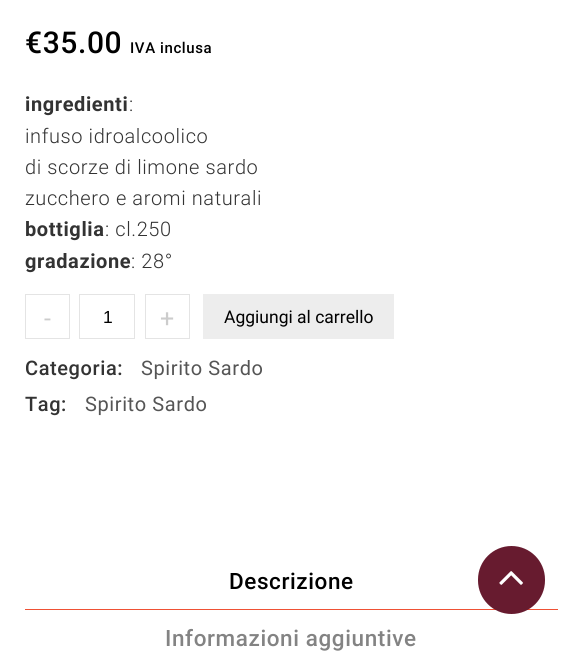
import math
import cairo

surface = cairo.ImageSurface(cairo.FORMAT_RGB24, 582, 651)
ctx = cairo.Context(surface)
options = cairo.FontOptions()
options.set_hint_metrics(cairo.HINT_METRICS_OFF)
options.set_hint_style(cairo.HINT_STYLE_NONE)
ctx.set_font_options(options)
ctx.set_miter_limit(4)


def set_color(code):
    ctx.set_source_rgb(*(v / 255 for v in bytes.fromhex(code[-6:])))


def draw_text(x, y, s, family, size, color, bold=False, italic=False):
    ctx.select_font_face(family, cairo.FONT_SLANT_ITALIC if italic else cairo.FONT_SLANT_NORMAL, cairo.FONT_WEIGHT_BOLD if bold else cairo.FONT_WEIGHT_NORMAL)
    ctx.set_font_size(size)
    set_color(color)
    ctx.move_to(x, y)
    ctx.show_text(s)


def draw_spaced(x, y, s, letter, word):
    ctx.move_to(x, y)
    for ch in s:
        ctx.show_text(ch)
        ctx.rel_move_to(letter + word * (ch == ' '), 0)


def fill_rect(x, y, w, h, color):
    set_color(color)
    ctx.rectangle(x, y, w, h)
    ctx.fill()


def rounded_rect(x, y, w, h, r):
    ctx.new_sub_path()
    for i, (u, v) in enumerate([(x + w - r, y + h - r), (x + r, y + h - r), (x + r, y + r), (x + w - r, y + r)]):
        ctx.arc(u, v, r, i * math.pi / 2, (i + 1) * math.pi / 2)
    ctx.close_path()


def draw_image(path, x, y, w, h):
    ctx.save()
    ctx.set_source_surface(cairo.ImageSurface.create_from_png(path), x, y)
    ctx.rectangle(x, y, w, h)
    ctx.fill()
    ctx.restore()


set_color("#ffffff")
ctx.paint()
ctx.select_font_face("Roboto Medium")
ctx.set_font_size(30)
set_color("#000000")
draw_spaced(25, 53, "€35.00", 0.6, 0)
ctx.set_font_size(15)
draw_spaced(130, 53, "IVA inclusa", 0.6, 0)
ctx.select_font_face("Roboto", cairo.FONT_SLANT_NORMAL, cairo.FONT_WEIGHT_BOLD)
ctx.set_font_size(20)
set_color("#333333")
draw_spaced(25, 111, "ingredienti", 0.6, 0)
ctx.select_font_face("Roboto Light")
draw_spaced(129, 111, ":", 0.6, 0)
draw_spaced(25, 143, "infuso idroalcoolico", 0.6, 0)
draw_spaced(25, 174, "di scorze di limone sardo", 0.6, 0)
draw_spaced(25, 205, "zucchero e aromi naturali", 0.6, 0)
ctx.select_font_face("Roboto", cairo.FONT_SLANT_NORMAL, cairo.FONT_WEIGHT_BOLD)
draw_spaced(25, 236, "bottiglia", 0.6, 0)
ctx.select_font_face("Roboto Light")
draw_spaced(105, 236, ": cl.250", 0.6, 0)
ctx.select_font_face("Roboto", cairo.FONT_SLANT_NORMAL, cairo.FONT_WEIGHT_BOLD)
draw_spaced(25, 268, "gradazione", 0.6, 0)
ctx.select_font_face("Roboto Light")
draw_spaced(131, 268, ": 28°", 0.6, 0)
ctx.rectangle(25.5, 294.5, 44, 44)
set_color("#e4e4e4")
ctx.set_line_width(1)
ctx.stroke()
draw_text(44, 327, "-", "Roboto", 25, "#cccccc")
ctx.rectangle(79.5, 294.5, 55, 44)
set_color("#e4e4e4")
ctx.stroke()
draw_text(103, 323, "1", "Liberation Sans", 17.5, "#000000")
ctx.rectangle(145.5, 294.5, 44, 44)
set_color("#e4e4e4")
ctx.stroke()
draw_text(160, 327, "+", "Roboto", 25, "#cccccc")
fill_rect(203, 294, 191, 45, "#ededed")
draw_text(224, 323, "Aggiungi al carrello", "Roboto", 17.5, "#000000")
ctx.select_font_face("Roboto Medium")
ctx.set_font_size(20)
set_color("#333333")
draw_spaced(25, 375, "Categoria:", 0.6, 0)
ctx.select_font_face("Roboto")
set_color("#555555")
draw_spaced(141, 375, "Spirito Sardo", 0.6, 0)
ctx.select_font_face("Roboto Medium")
set_color("#333333")
draw_spaced(25, 411, "Tag:", 0.6, 0)
ctx.select_font_face("Roboto")
set_color("#555555")
draw_spaced(85, 411, "Spirito Sardo", 0.6, 0)
fill_rect(25, 609, 533, 1, "#ef5135")
ctx.select_font_face("Roboto Medium")
ctx.set_font_size(22.5)
set_color("#000000")
draw_spaced(229, 589, "Descrizione", 0.6, 0)
set_color("#838383")
draw_spaced(165, 646, "Informazioni aggiuntive", 0.6, 0)
set_color("#671b2f")
rounded_rect(478, 546, 67, 68, 33.5)
ctx.fill()
draw_image("assets/img1.png", 499, 571, 24, 14)
surface.write_to_png("output.png")
